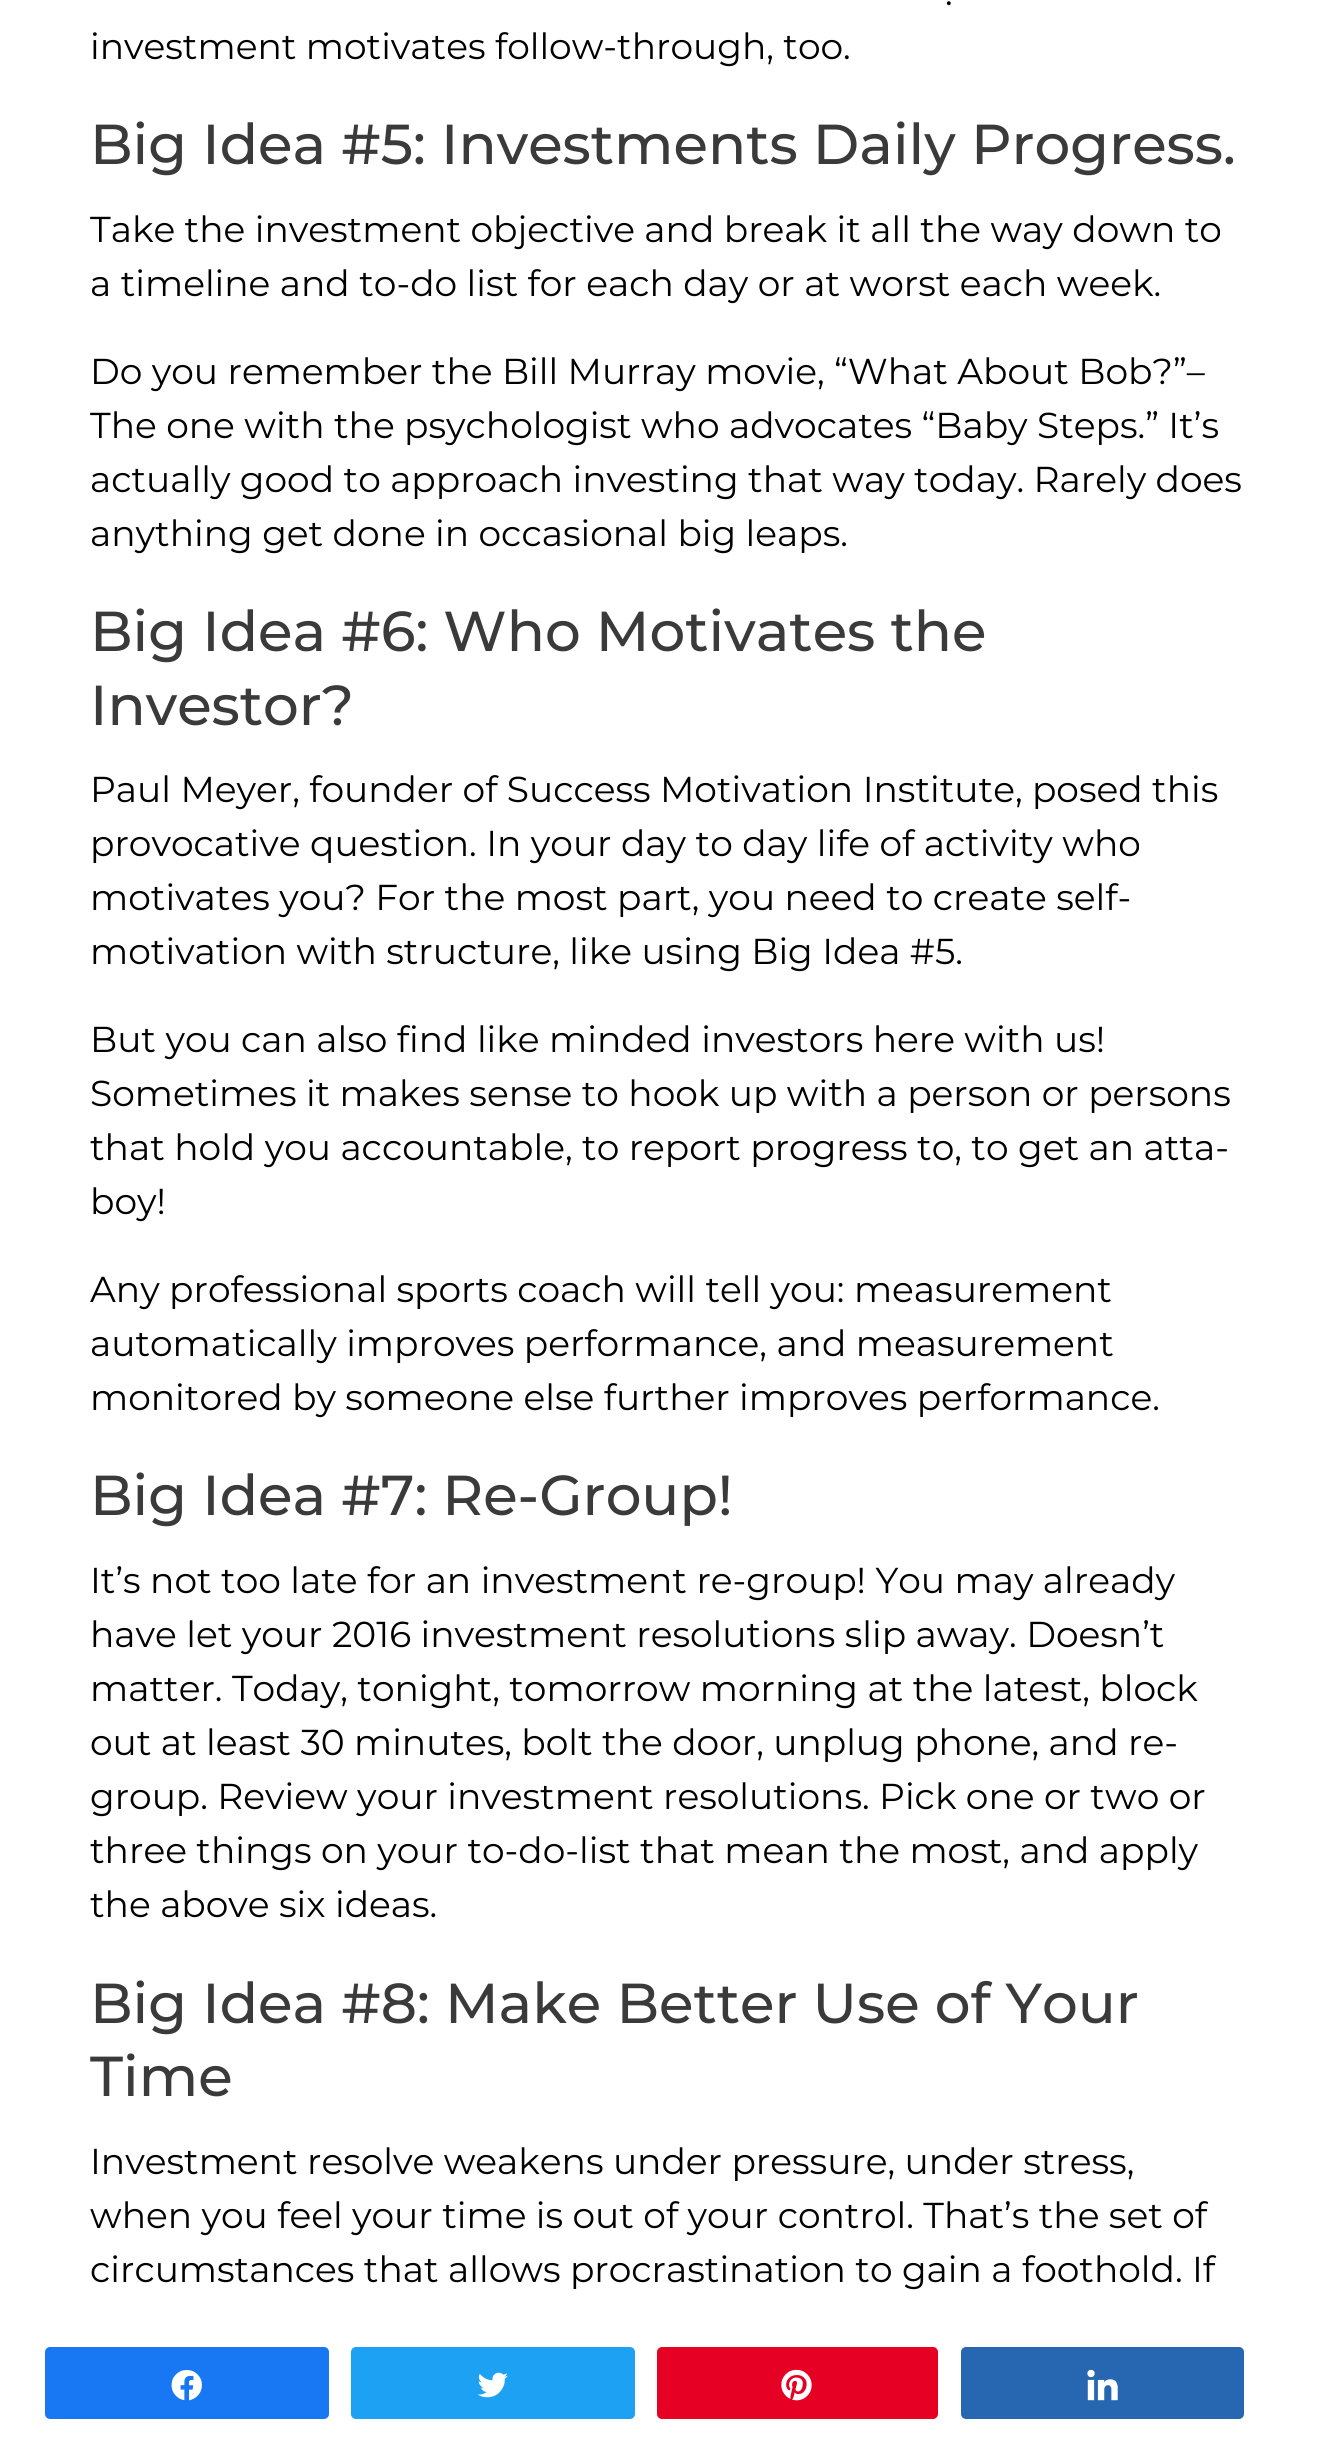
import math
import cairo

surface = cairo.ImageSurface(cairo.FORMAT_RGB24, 1334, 2445)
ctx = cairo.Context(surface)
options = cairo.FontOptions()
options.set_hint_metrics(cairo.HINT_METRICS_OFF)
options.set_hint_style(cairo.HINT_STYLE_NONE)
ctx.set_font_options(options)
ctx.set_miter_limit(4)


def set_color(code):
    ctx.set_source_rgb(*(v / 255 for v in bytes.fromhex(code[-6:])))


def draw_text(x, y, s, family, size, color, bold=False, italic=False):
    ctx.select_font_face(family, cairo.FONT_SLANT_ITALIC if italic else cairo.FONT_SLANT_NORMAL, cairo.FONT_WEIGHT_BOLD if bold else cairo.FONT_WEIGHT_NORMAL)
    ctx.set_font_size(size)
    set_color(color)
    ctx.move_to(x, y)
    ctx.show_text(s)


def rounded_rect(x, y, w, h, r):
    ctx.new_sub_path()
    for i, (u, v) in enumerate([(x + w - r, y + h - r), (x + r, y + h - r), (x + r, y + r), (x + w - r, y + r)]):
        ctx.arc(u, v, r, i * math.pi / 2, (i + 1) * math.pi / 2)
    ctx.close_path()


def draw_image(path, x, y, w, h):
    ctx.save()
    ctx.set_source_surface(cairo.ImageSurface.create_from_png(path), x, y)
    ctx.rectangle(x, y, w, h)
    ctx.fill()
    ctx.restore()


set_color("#ffffff")
ctx.paint()
draw_text(945, 5, ".", "Montserrat", 36, "#000000")
draw_text(90, 59, "investment motivates follow-through, too.", "Montserrat", 36, "#000000")
draw_text(90, 164, "Big Idea #5: Investments Daily Progress.", "Montserrat Medium", 56.25, "#3a3a3a")
draw_text(90, 242, "Take the investment objective and break it all the way down to", "Montserrat", 36, "#000000")
draw_text(90, 296, "a timeline and to-do list for each day or at worst each week.", "Montserrat", 36, "#000000")
draw_text(90, 384, "Do you remember the Bill Murray movie, “What About Bob?”–", "Montserrat", 36, "#000000")
draw_text(90, 438, "The one with the psychologist who advocates “Baby Steps.” It’s", "Montserrat", 36, "#000000")
draw_text(90, 492, "actually good to approach investing that way today. Rarely does", "Montserrat", 36, "#000000")
draw_text(90, 546, "anything get done in occasional big leaps.", "Montserrat", 36, "#000000")
draw_text(90, 651, "Big Idea #6: Who Motivates the", "Montserrat Medium", 56.25, "#3a3a3a")
draw_text(90, 725, "Investor?", "Montserrat Medium", 56.25, "#3a3a3a")
draw_text(90, 802, "Paul Meyer, founder of Success Motivation Institute, posed this", "Montserrat", 36, "#000000")
draw_text(90, 856, "provocative question. In your day to day life of activity who", "Montserrat", 36, "#000000")
draw_text(90, 910, "motivates you? For the most part, you need to create self-", "Montserrat", 36, "#000000")
draw_text(90, 964, "motivation with structure, like using Big Idea #5.", "Montserrat", 36, "#000000")
draw_text(90, 1052, "But you can also find like minded investors here with us!", "Montserrat", 36, "#000000")
draw_text(90, 1106, "Sometimes it makes sense to hook up with a person or persons", "Montserrat", 36, "#000000")
draw_text(90, 1160, "that hold you accountable, to report progress to, to get an atta-", "Montserrat", 36, "#000000")
draw_text(90, 1214, "boy!", "Montserrat", 36, "#000000")
draw_text(90, 1302, "Any professional sports coach will tell you: measurement", "Montserrat", 36, "#000000")
draw_text(90, 1356, "automatically improves performance, and measurement", "Montserrat", 36, "#000000")
draw_text(90, 1410, "monitored by someone else further improves performance.", "Montserrat", 36, "#000000")
draw_text(90, 1515, "Big Idea #7: Re-Group!", "Montserrat Medium", 56.25, "#3a3a3a")
draw_text(90, 1593, "It’s not too late for an investment re-group! You may already", "Montserrat", 36, "#000000")
draw_text(90, 1647, "have let your 2016 investment resolutions slip away. Doesn’t", "Montserrat", 36, "#000000")
draw_text(90, 1701, "matter. Today, tonight, tomorrow morning at the latest, block", "Montserrat", 36, "#000000")
draw_text(90, 1755, "out at least 30 minutes, bolt the door, unplug phone, and re-", "Montserrat", 36, "#000000")
draw_text(90, 1809, "group. Review your investment resolutions. Pick one or two or", "Montserrat", 36, "#000000")
draw_text(90, 1863, "three things on your to-do-list that mean the most, and apply", "Montserrat", 36, "#000000")
draw_text(90, 1917, "the above six ideas.", "Montserrat", 36, "#000000")
draw_text(90, 2023, "Big Idea #8: Make Better Use of Your", "Montserrat Medium", 56.25, "#3a3a3a")
draw_text(90, 2096, "Time", "Montserrat Medium", 56.25, "#3a3a3a")
draw_text(90, 2174, "Investment resolve weakens under pressure, under stress,", "Montserrat", 36, "#000000")
draw_text(90, 2228, "when you feel your time is out of your control. That’s the set of", "Montserrat", 36, "#000000")
draw_text(90, 2282, "circumstances that allows procrastination to gain a foothold. If", "Montserrat", 36, "#000000")
set_color("#1877f2")
rounded_rect(46, 2348, 282, 70, 4)
ctx.fill_preserve()
ctx.stroke()
draw_image("assets/img1.png", 171, 2370, 31, 31)
set_color("#1da1f2")
rounded_rect(352, 2348, 282, 70, 4)
ctx.fill_preserve()
ctx.stroke()
draw_image("assets/img2.png", 477, 2372, 31, 26)
set_color("#e60023")
rounded_rect(658, 2348, 279, 70, 4)
ctx.fill_preserve()
ctx.stroke()
draw_image("assets/img3.png", 781, 2369, 31, 32)
set_color("#2767b1")
rounded_rect(962, 2348, 281, 70, 4)
ctx.fill_preserve()
ctx.stroke()
draw_image("assets/img4.png", 1087, 2369, 31, 32)
surface.write_to_png("output.png")
